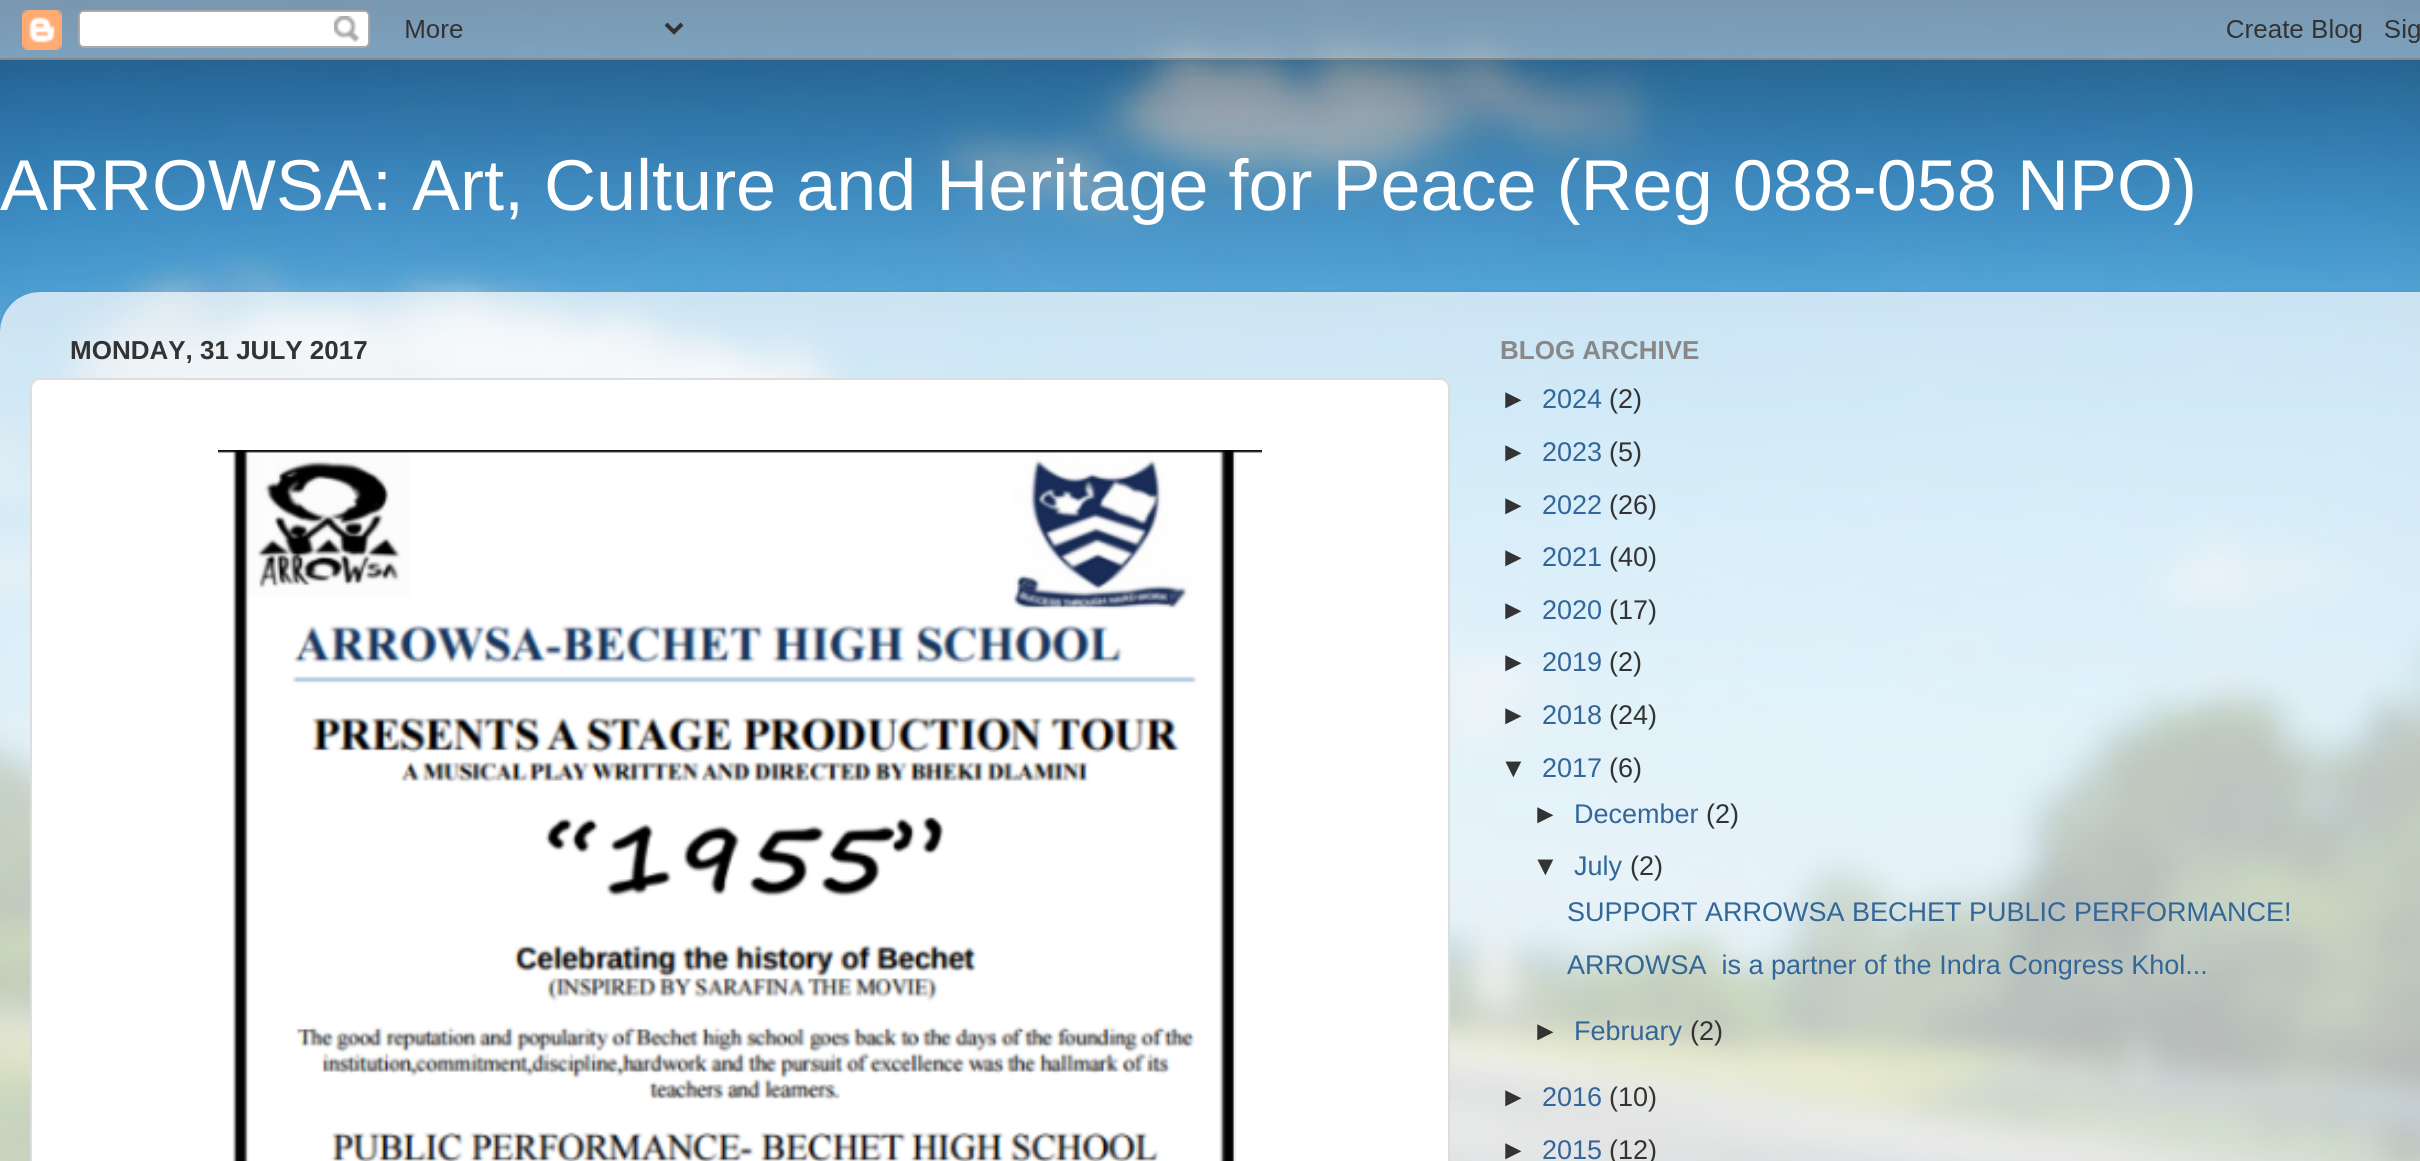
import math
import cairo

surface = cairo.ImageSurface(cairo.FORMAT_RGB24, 2420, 1161)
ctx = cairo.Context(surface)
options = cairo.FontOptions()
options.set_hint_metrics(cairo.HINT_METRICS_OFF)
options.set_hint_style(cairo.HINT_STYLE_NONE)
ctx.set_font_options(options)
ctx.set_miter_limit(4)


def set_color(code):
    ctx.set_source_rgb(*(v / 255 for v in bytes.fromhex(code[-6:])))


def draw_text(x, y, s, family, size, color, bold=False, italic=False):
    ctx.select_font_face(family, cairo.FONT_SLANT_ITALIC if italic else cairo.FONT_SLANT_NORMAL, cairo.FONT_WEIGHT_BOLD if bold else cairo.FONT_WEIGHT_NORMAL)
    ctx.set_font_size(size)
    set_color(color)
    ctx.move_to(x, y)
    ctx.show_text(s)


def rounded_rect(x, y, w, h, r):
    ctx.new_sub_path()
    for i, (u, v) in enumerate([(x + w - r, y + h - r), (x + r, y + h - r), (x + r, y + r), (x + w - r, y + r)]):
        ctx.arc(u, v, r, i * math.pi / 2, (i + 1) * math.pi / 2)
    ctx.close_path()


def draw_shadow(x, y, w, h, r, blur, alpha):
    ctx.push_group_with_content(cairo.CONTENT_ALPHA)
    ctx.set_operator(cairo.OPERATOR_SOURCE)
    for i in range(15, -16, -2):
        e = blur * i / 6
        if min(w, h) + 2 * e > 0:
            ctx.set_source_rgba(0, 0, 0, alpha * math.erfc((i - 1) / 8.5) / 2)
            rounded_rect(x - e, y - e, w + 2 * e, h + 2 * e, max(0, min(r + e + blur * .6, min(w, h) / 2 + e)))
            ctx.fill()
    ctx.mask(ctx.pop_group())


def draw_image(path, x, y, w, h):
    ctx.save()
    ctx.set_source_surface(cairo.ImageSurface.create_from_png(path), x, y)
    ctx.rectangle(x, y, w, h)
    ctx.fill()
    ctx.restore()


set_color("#ffffff")
ctx.paint()
draw_image("assets/img1.png", 0, 0, 2420, 1161)
draw_image("assets/img2.png", 0, 0, 2420, 60)
draw_text(0, 210, "ARROWSA: Art, Culture and Heritage for Peace (Reg 088-058 NPO)", "Liberation Sans", 72, "#ffffff")
ctx.save()
ctx.set_fill_rule(cairo.FILL_RULE_EVEN_ODD)
ctx.new_path()
ctx.move_to(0, 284)
ctx.line_to(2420, 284)
ctx.line_to(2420, 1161)
ctx.line_to(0, 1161)
ctx.close_path()
ctx.move_to(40, 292)
ctx.line_to(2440, 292)
ctx.curve_to(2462, 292, 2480, 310, 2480, 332)
ctx.line_to(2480, 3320)
ctx.line_to(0, 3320)
ctx.line_to(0, 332)
ctx.curve_to(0, 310, 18, 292, 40, 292)
ctx.close_path()
ctx.clip()
set_color("#000000")
draw_shadow(0, 294, 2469, 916, 40, 3, 0.15)
ctx.restore()
draw_image("assets/img3.png", 0, 292, 2420, 869)
draw_text(70, 359, "MONDAY, 31 JULY 2017", "Liberation Sans", 26, "#333333", bold=True)
set_color("#ffffff")
rounded_rect(31, 379, 1418, 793, 9)
ctx.fill_preserve()
set_color("#dddddd")
ctx.stroke()
draw_image("assets/img4.png", 218, 450, 1044, 711)
draw_text(1500, 359, "BLOG ARCHIVE", "Liberation Sans", 26, "#888888", bold=True)
draw_text(1500, 408, "►", "Liberation Sans", 27, "#333333")
draw_text(1542, 408, "2024", "Liberation Sans", 27, "#336699")
draw_text(1609, 408, "(2)", "Liberation Sans", 27, "#333333")
draw_text(1500, 461, "►", "Liberation Sans", 27, "#333333")
draw_text(1542, 461, "2023", "Liberation Sans", 27, "#336699")
draw_text(1609, 461, "(5)", "Liberation Sans", 27, "#333333")
draw_text(1500, 514, "►", "Liberation Sans", 27, "#333333")
draw_text(1542, 514, "2022", "Liberation Sans", 27, "#336699")
draw_text(1609, 514, "(26)", "Liberation Sans", 27, "#333333")
draw_text(1500, 566, "►", "Liberation Sans", 27, "#333333")
draw_text(1542, 566, "2021", "Liberation Sans", 27, "#336699")
draw_text(1609, 566, "(40)", "Liberation Sans", 27, "#333333")
draw_text(1500, 619, "►", "Liberation Sans", 27, "#333333")
draw_text(1542, 619, "2020", "Liberation Sans", 27, "#336699")
draw_text(1609, 619, "(17)", "Liberation Sans", 27, "#333333")
draw_text(1500, 671, "►", "Liberation Sans", 27, "#333333")
draw_text(1542, 671, "2019", "Liberation Sans", 27, "#336699")
draw_text(1609, 671, "(2)", "Liberation Sans", 27, "#333333")
draw_text(1500, 724, "►", "Liberation Sans", 27, "#333333")
draw_text(1542, 724, "2018", "Liberation Sans", 27, "#336699")
draw_text(1609, 724, "(24)", "Liberation Sans", 27, "#333333")
draw_text(1500, 777, "▼", "Liberation Sans", 27, "#333333")
draw_text(1542, 777, "2017", "Liberation Sans", 27, "#336699")
draw_text(1609, 777, "(6)", "Liberation Sans", 27, "#333333")
draw_text(1532, 823, "►", "Liberation Sans", 27, "#333333")
draw_text(1574, 823, "December", "Liberation Sans", 27, "#336699")
draw_text(1706, 823, "(2)", "Liberation Sans", 27, "#333333")
draw_text(1532, 875, "▼", "Liberation Sans", 27, "#333333")
draw_text(1574, 875, "July", "Liberation Sans", 27, "#336699")
draw_text(1630, 875, "(2)", "Liberation Sans", 27, "#333333")
draw_text(1567, 921, "SUPPORT ARROWSA BECHET PUBLIC PERFORMANCE!", "Liberation Sans", 27, "#336699")
draw_text(1567, 974, "ARROWSA  is a partner of the Indra Congress Khol...", "Liberation Sans", 27, "#336699")
draw_text(1532, 1040, "►", "Liberation Sans", 27, "#333333")
draw_text(1574, 1040, "February", "Liberation Sans", 27, "#336699")
draw_text(1690, 1040, "(2)", "Liberation Sans", 27, "#333333")
draw_text(1500, 1106, "►", "Liberation Sans", 27, "#333333")
draw_text(1542, 1106, "2016", "Liberation Sans", 27, "#336699")
draw_text(1609, 1106, "(10)", "Liberation Sans", 27, "#333333")
draw_text(1500, 1159, "►", "Liberation Sans", 27, "#333333")
draw_text(1542, 1159, "2015", "Liberation Sans", 27, "#336699")
draw_text(1609, 1159, "(12)", "Liberation Sans", 27, "#333333")
surface.write_to_png("output.png")
